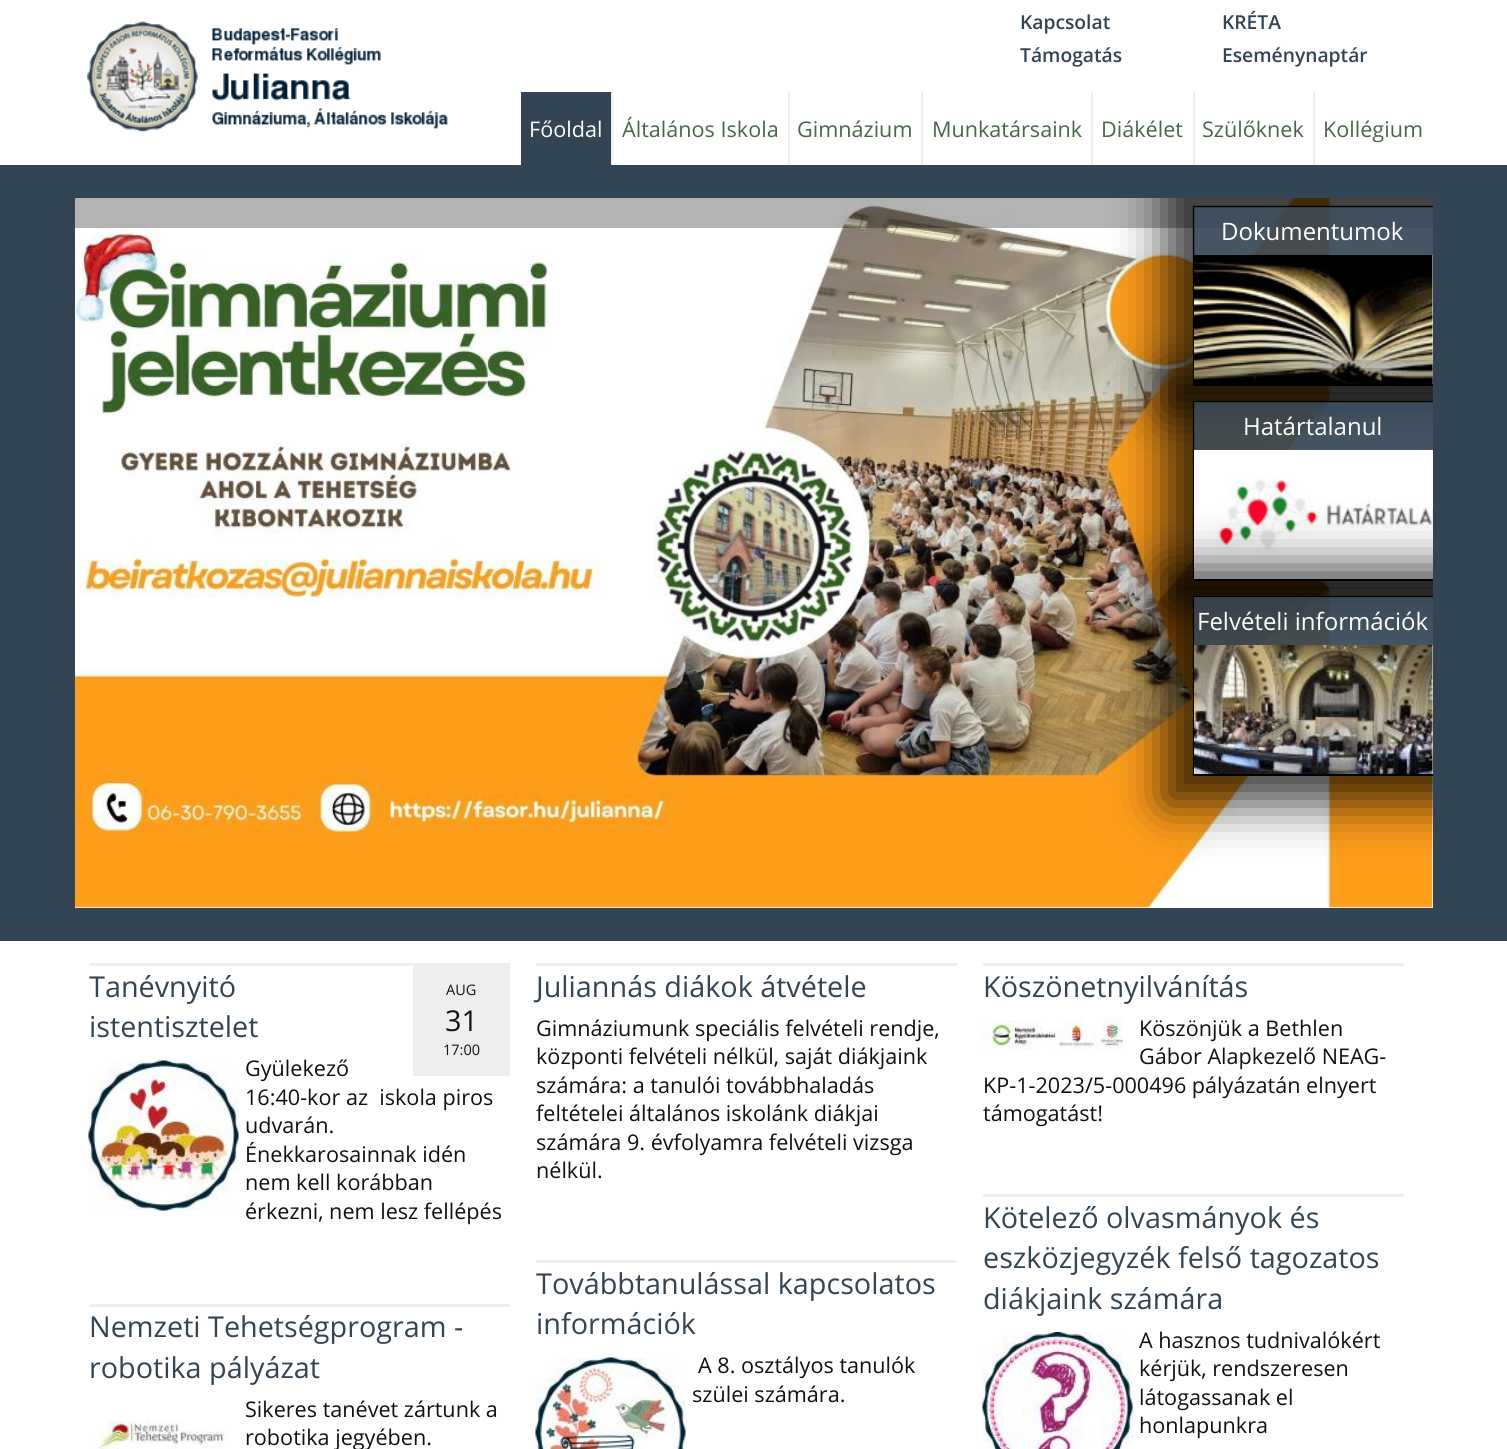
import math
import cairo

surface = cairo.ImageSurface(cairo.FORMAT_RGB24, 1507, 1449)
ctx = cairo.Context(surface)
options = cairo.FontOptions()
options.set_hint_metrics(cairo.HINT_METRICS_OFF)
options.set_hint_style(cairo.HINT_STYLE_NONE)
ctx.set_font_options(options)
ctx.set_miter_limit(4)


def set_color(code):
    ctx.set_source_rgb(*(v / 255 for v in bytes.fromhex(code[-6:])))


def draw_text(x, y, s, family, size, color, bold=False, italic=False):
    ctx.select_font_face(family, cairo.FONT_SLANT_ITALIC if italic else cairo.FONT_SLANT_NORMAL, cairo.FONT_WEIGHT_BOLD if bold else cairo.FONT_WEIGHT_NORMAL)
    ctx.set_font_size(size)
    set_color(color)
    ctx.move_to(x, y)
    ctx.show_text(s)


def fill_rect(x, y, w, h, color):
    set_color(color)
    ctx.rectangle(x, y, w, h)
    ctx.fill()


def rounded_rect(x, y, w, h, r):
    ctx.new_sub_path()
    for i, (u, v) in enumerate([(x + w - r, y + h - r), (x + r, y + h - r), (x + r, y + r), (x + w - r, y + r)]):
        ctx.arc(u, v, r, i * math.pi / 2, (i + 1) * math.pi / 2)
    ctx.close_path()


def draw_shadow(x, y, w, h, r, blur, alpha):
    ctx.push_group_with_content(cairo.CONTENT_ALPHA)
    ctx.set_operator(cairo.OPERATOR_SOURCE)
    for i in range(15, -16, -2):
        e = blur * i / 6
        if min(w, h) + 2 * e > 0:
            ctx.set_source_rgba(0, 0, 0, alpha * math.erfc((i - 1) / 8.5) / 2)
            rounded_rect(x - e, y - e, w + 2 * e, h + 2 * e, max(0, min(r + e + blur * .6, min(w, h) / 2 + e)))
            ctx.fill()
    ctx.mask(ctx.pop_group())


def draw_image(path, x, y, w, h):
    ctx.save()
    ctx.set_source_surface(cairo.ImageSurface.create_from_png(path), x, y)
    ctx.rectangle(x, y, w, h)
    ctx.fill()
    ctx.restore()


set_color("#ffffff")
ctx.paint()
draw_image("assets/img1.png", 86, 21, 362, 112)
draw_text(1020, 29, "Kapcsolat", "Open Sans SemiBold", 19.25, "#334454")
draw_text(1222, 29, "KRÉTA", "Open Sans SemiBold", 19.25, "#334454")
draw_text(1020, 62, "Támogatás", "Open Sans SemiBold", 19.25, "#334454")
draw_text(1222, 62, "Eseménynaptár", "Open Sans SemiBold", 19.25, "#334454")
fill_rect(521, 92, 90, 73, "#334454")
draw_text(529, 137, "Főoldal", "Open Sans", 21.6, "#fefefe")
fill_rect(611, 92, 2, 73, "#eeeeee")
draw_text(622, 137, "Általános Iskola", "Open Sans", 21.6, "#4a664a")
fill_rect(788, 92, 2, 73, "#eeeeee")
draw_text(797, 137, "Gimnázium", "Open Sans", 21.6, "#4a664a")
fill_rect(921, 92, 2, 73, "#eeeeee")
draw_text(932, 137, "Munkatársaink", "Open Sans", 21.6, "#4a664a")
fill_rect(0, 165, 1507, 776, "#334454")
fill_rect(75, 198, 1358, 710, "#ffffff")
draw_image("assets/img2.png", 75, 198, 1358, 710)
ctx.set_source_rgba(0, 0, 0, 0.3)
ctx.rectangle(75, 198, 1358, 30)
ctx.fill()
ctx.save()
ctx.rectangle(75, 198, 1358, 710)
ctx.clip()
ctx.set_fill_rule(cairo.FILL_RULE_EVEN_ODD)
ctx.new_path()
ctx.move_to(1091, 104)
ctx.line_to(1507, 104)
ctx.line_to(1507, 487)
ctx.line_to(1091, 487)
ctx.close_path()
ctx.move_to(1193, 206)
ctx.line_to(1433, 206)
ctx.line_to(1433, 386)
ctx.line_to(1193, 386)
ctx.close_path()
ctx.clip()
set_color("#000000")
draw_shadow(1164, 177, 297, 237, 0, 24, 0.75)
ctx.restore()
fill_rect(1091, 92, 2, 73, "#eeeeee")
draw_text(1101, 137, "Diákélet", "Open Sans", 21.6, "#4a664a")
fill_rect(1193, 92, 2, 73, "#eeeeee")
draw_text(1202, 137, "Szülőknek", "Open Sans", 21.6, "#4a664a")
fill_rect(1313, 92, 2, 73, "#eeeeee")
draw_text(1323, 137, "Kollégium", "Open Sans", 21.6, "#4a664a")
fill_rect(1193, 206, 240, 2, "#000000")
fill_rect(1193, 384, 240, 2, "#000000")
fill_rect(1193, 206, 2, 180, "#000000")
ctx.set_source_rgba(0.2, 0.267, 0.329, 0.9)
ctx.rectangle(1194, 207, 239, 48)
ctx.fill()
draw_text(1221, 240, "Dokumentumok", "Open Sans", 24, "#fefefe")
draw_image("assets/img3.png", 1194, 255, 239, 129)
ctx.save()
ctx.rectangle(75, 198, 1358, 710)
ctx.clip()
ctx.set_fill_rule(cairo.FILL_RULE_EVEN_ODD)
ctx.new_path()
ctx.move_to(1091, 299)
ctx.line_to(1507, 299)
ctx.line_to(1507, 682)
ctx.line_to(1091, 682)
ctx.close_path()
ctx.move_to(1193, 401)
ctx.line_to(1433, 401)
ctx.line_to(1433, 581)
ctx.line_to(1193, 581)
ctx.close_path()
ctx.clip()
set_color("#000000")
draw_shadow(1164, 372, 297, 237, 0, 24, 0.75)
ctx.restore()
fill_rect(1193, 401, 240, 2, "#000000")
fill_rect(1193, 579, 240, 2, "#000000")
fill_rect(1193, 401, 2, 180, "#000000")
ctx.set_source_rgba(0.2, 0.267, 0.329, 0.9)
ctx.rectangle(1194, 402, 239, 48)
ctx.fill()
draw_text(1243, 435, "Határtalanul", "Open Sans", 24, "#fefefe")
draw_image("assets/img4.png", 1194, 450, 239, 129)
ctx.save()
ctx.rectangle(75, 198, 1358, 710)
ctx.clip()
ctx.set_fill_rule(cairo.FILL_RULE_EVEN_ODD)
ctx.new_path()
ctx.move_to(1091, 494)
ctx.line_to(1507, 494)
ctx.line_to(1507, 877)
ctx.line_to(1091, 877)
ctx.close_path()
ctx.move_to(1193, 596)
ctx.line_to(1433, 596)
ctx.line_to(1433, 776)
ctx.line_to(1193, 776)
ctx.close_path()
ctx.clip()
set_color("#000000")
draw_shadow(1164, 567, 297, 237, 0, 24, 0.75)
ctx.restore()
fill_rect(1193, 596, 240, 2, "#000000")
fill_rect(1193, 774, 240, 2, "#000000")
fill_rect(1193, 596, 2, 180, "#000000")
ctx.set_source_rgba(0.2, 0.267, 0.329, 0.9)
ctx.rectangle(1194, 597, 239, 48)
ctx.fill()
draw_text(1197, 630, "Felvételi információk", "Open Sans", 24, "#fefefe")
draw_image("assets/img5.png", 1194, 645, 239, 129)
fill_rect(89, 963, 421, 3, "#eeeeee")
draw_text(89, 997, "Tanévnyitó", "Open Sans", 28.75, "#334454")
draw_text(89, 1037, "istentisztelet", "Open Sans", 28.75, "#334454")
fill_rect(413, 966, 97, 110, "#eeeeee")
draw_text(446, 995, "AUG", "Open Sans", 14.5, "#111111")
draw_text(445, 1031, "31", "Open Sans", 28.75, "#111111")
draw_text(443, 1055, "17:00", "Open Sans", 14.5, "#111111")
draw_image("assets/img6.png", 88, 1060, 151, 151)
draw_text(245, 1076, "Gyülekező", "Open Sans", 21.6, "#111111")
draw_text(245, 1105, "16:40-kor az  iskola piros", "Open Sans", 21.6, "#111111")
draw_text(245, 1133, "udvarán.", "Open Sans", 21.6, "#111111")
draw_text(245, 1162, "Énekkarosainnak idén", "Open Sans", 21.6, "#111111")
draw_text(245, 1190, "nem kell korábban", "Open Sans", 21.6, "#111111")
draw_text(245, 1219, "érkezni, nem lesz fellépés", "Open Sans", 21.6, "#111111")
fill_rect(536, 963, 421, 3, "#eeeeee")
draw_text(536, 997, "Juliannás diákok átvétele", "Open Sans", 28.75, "#334454")
draw_text(536, 1036, "Gimnáziumunk speciális felvételi rendje,", "Open Sans", 21.6, "#111111")
draw_text(536, 1064, "központi felvételi nélkül, saját diákjaink", "Open Sans", 21.6, "#111111")
draw_text(536, 1093, "számára: a tanulói továbbhaladás", "Open Sans", 21.6, "#111111")
draw_text(536, 1121, "feltételei általános iskolánk diákjai", "Open Sans", 21.6, "#111111")
draw_text(536, 1150, "számára 9. évfolyamra felvételi vizsga", "Open Sans", 21.6, "#111111")
draw_text(536, 1178, "nélkül.", "Open Sans", 21.6, "#111111")
fill_rect(983, 963, 421, 3, "#eeeeee")
draw_text(983, 997, "Köszönetnyilvánítás", "Open Sans", 28.75, "#334454")
draw_text(1139, 1036, "Köszönjük a Bethlen", "Open Sans", 21.6, "#111111")
draw_text(1139, 1064, "Gábor Alapkezelő NEAG-", "Open Sans", 21.6, "#111111")
draw_text(983, 1093, "KP-1-2023/5-000496 pályázatán elnyert", "Open Sans", 21.6, "#111111")
draw_text(983, 1121, "támogatást!", "Open Sans", 21.6, "#111111")
draw_image("assets/img7.png", 982, 1020, 141, 30)
fill_rect(89, 1304, 421, 3, "#eeeeee")
draw_text(89, 1337, "Nemzeti Tehetségprogram -", "Open Sans", 28.75, "#334454")
draw_text(89, 1378, "robotika pályázat", "Open Sans", 28.75, "#334454")
draw_image("assets/img8.png", 88, 1420, 141, 29)
draw_text(245, 1417, "Sikeres tanévet zártunk a", "Open Sans", 21.6, "#111111")
draw_text(245, 1445, "robotika jegyében.", "Open Sans", 21.6, "#111111")
fill_rect(536, 1260, 421, 3, "#eeeeee")
draw_text(536, 1294, "Továbbtanulással kapcsolatos", "Open Sans", 28.75, "#334454")
draw_text(536, 1334, "információk", "Open Sans", 28.75, "#334454")
draw_image("assets/img9.png", 535, 1357, 151, 92)
draw_text(698, 1373, "A 8. osztályos tanulók", "Open Sans", 21.6, "#111111")
draw_text(692, 1402, "szülei számára.", "Open Sans", 21.6, "#111111")
fill_rect(983, 1194, 421, 3, "#eeeeee")
draw_text(983, 1228, "Kötelező olvasmányok és", "Open Sans", 28.75, "#334454")
draw_text(983, 1268, "eszközjegyzék felső tagozatos", "Open Sans", 28.75, "#334454")
draw_text(983, 1309, "diákjaink számára", "Open Sans", 28.75, "#334454")
draw_image("assets/img10.png", 982, 1332, 151, 117)
draw_text(1139, 1348, "A hasznos tudnivalókért", "Open Sans", 21.6, "#111111")
draw_text(1139, 1376, "kérjük, rendszeresen", "Open Sans", 21.6, "#111111")
draw_text(1139, 1405, "látogassanak el", "Open Sans", 21.6, "#111111")
draw_text(1139, 1433, "honlapunkra", "Open Sans", 21.6, "#111111")
surface.write_to_png("output.png")
